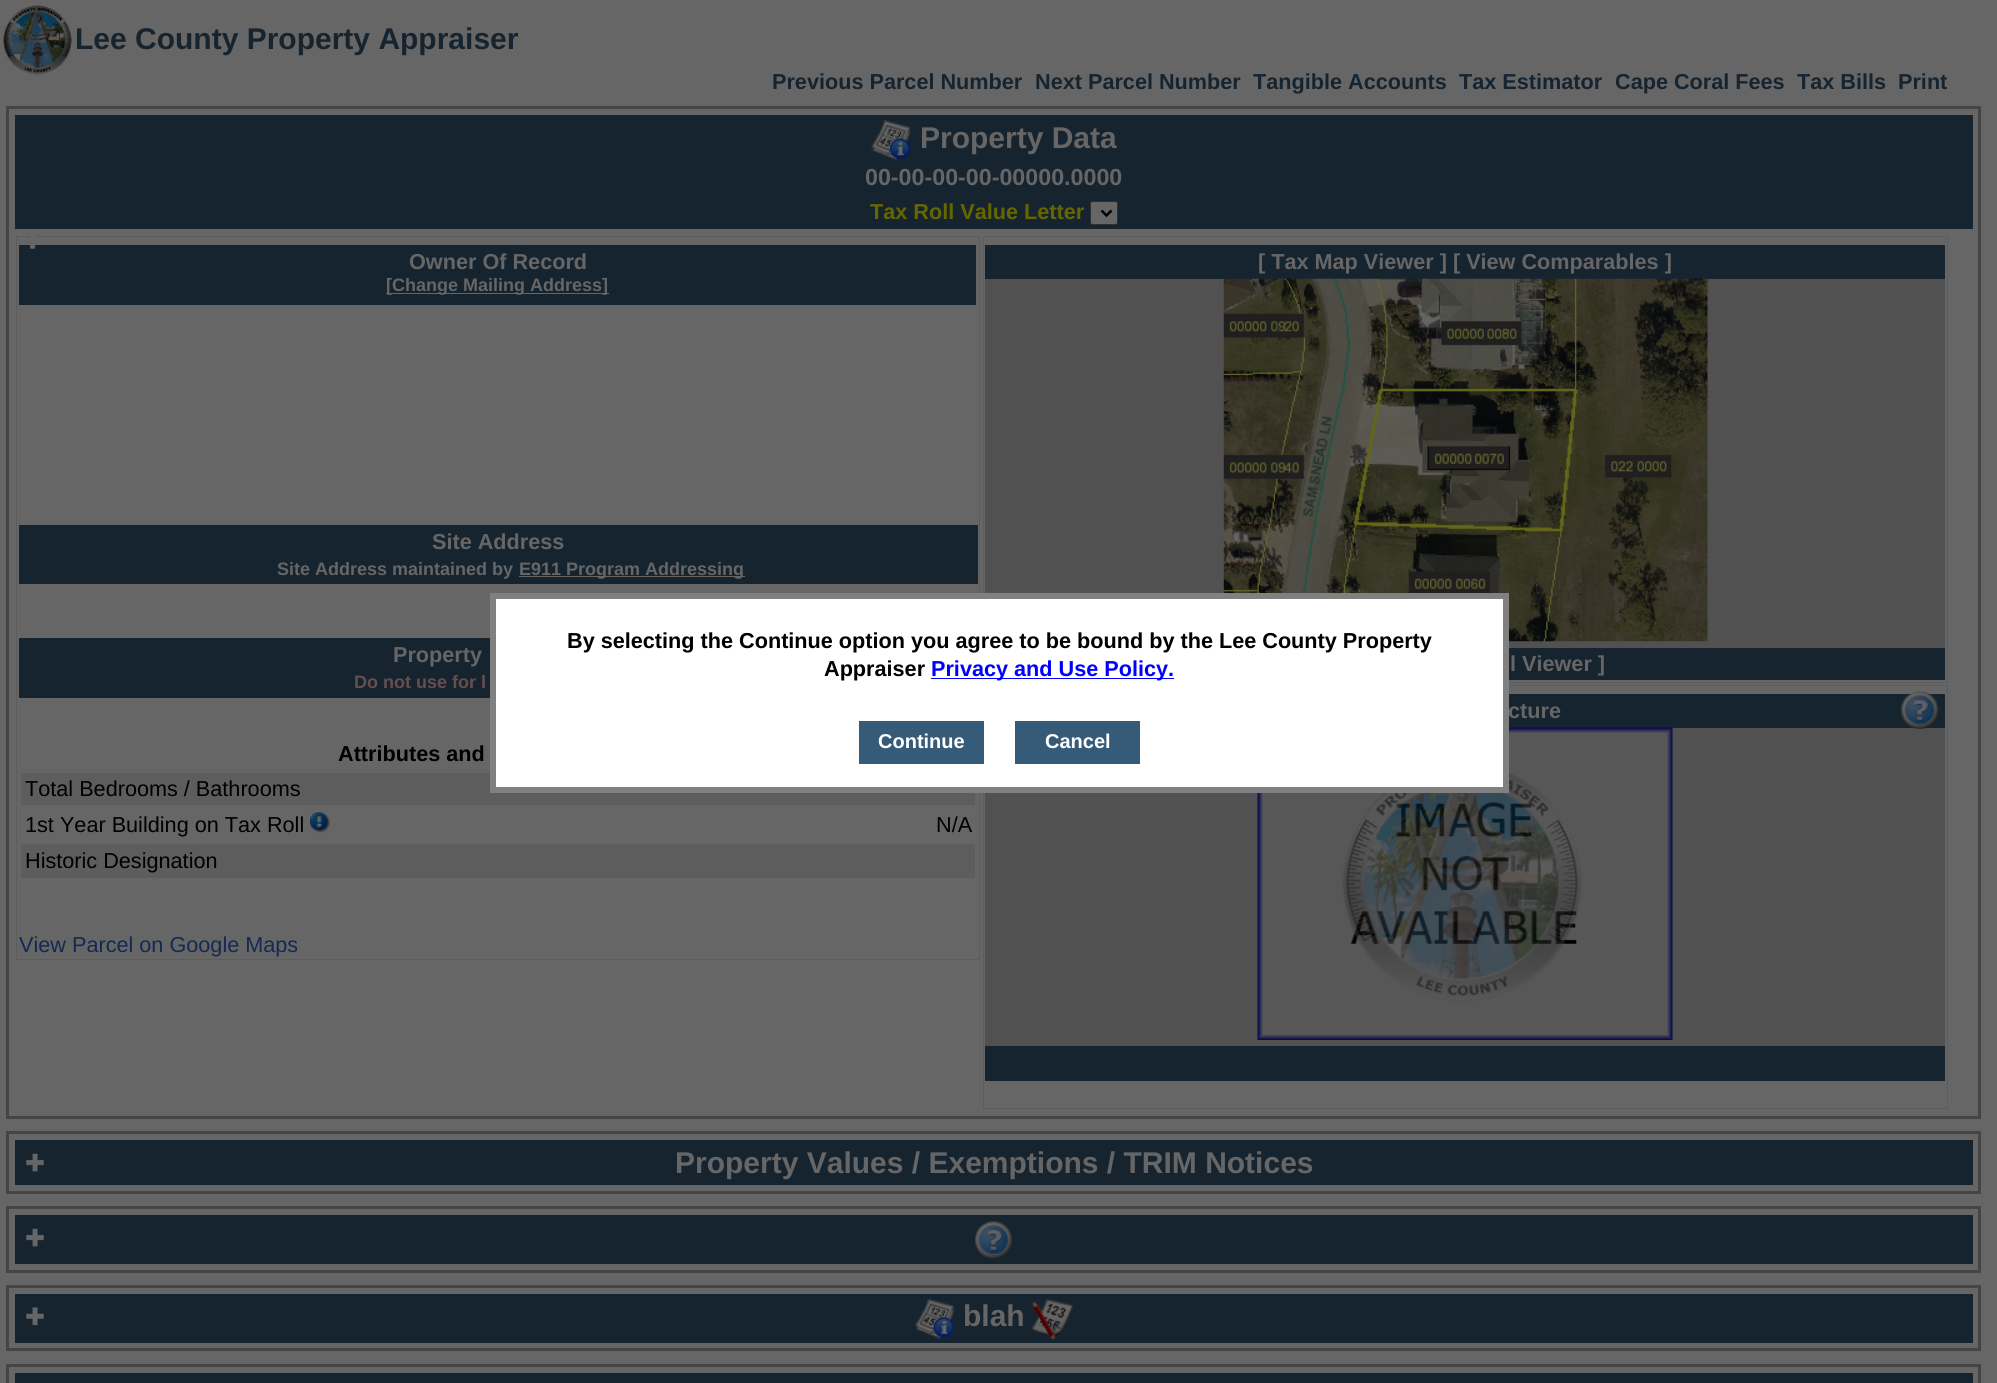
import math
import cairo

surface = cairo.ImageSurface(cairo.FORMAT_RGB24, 1997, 1383)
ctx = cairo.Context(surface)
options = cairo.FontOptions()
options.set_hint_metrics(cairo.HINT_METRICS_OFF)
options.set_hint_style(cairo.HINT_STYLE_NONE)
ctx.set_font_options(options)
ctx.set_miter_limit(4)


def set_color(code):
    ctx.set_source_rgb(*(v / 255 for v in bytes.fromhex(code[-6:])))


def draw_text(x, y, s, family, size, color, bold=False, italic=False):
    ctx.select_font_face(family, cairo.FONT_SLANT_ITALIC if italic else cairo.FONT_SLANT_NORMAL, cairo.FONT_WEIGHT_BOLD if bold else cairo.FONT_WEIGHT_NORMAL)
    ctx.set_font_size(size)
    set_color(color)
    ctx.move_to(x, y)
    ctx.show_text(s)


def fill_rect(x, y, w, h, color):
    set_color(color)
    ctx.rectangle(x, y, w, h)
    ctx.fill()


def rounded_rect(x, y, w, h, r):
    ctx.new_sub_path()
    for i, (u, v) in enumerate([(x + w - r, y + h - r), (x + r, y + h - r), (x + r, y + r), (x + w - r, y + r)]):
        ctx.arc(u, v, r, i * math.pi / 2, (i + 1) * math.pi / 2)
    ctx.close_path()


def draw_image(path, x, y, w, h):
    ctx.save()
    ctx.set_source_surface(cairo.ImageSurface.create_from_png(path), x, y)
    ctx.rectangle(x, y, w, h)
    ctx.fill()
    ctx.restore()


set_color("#666666")
ctx.paint()
draw_image("assets/img1.png", 3, 5, 69, 70)
draw_text(75, 49, "Lee County Property Appraiser", "Liberation Sans", 30, "#162430", bold=True)
draw_text(772, 89, "Previous Parcel Number", "Liberation Sans", 21.65, "#162430", bold=True)
draw_text(1035, 89, "Next Parcel Number", "Liberation Sans", 21.65, "#162430", bold=True)
draw_text(1253, 89, "Tangible Accounts", "Liberation Sans", 21.65, "#162430", bold=True)
draw_text(1459, 89, "Tax Estimator", "Liberation Sans", 21.65, "#162430", bold=True)
draw_text(1615, 89, "Cape Coral Fees", "Liberation Sans", 21.65, "#162430", bold=True)
draw_text(1797, 89, "Tax Bills", "Liberation Sans", 21.65, "#162430", bold=True)
draw_text(1898, 89, "Print", "Liberation Sans", 21.65, "#162430", bold=True)
ctx.rectangle(7.5, 107.5, 1972, 1010)
set_color("#454545")
ctx.set_line_width(3)
ctx.stroke()
fill_rect(15, 115, 1958, 49, "#162430")
draw_image("assets/img2.png", 871, 120, 41, 40)
draw_text(920, 148, "Property Data", "Liberation Sans", 30, "#666666", bold=True)
fill_rect(15, 164, 1958, 65, "#162430")
draw_text(865, 185, "00-00-00-00-00000.0000", "Liberation Sans", 23.25, "#666666", bold=True)
draw_text(870, 219, "Tax Roll Value Letter", "Liberation Sans", 21.65, "#666600", bold=True)
set_color("#666666")
rounded_rect(1090.5, 201.5, 27, 23, 2)
ctx.fill_preserve()
set_color("#2f2f2f")
ctx.set_line_width(1)
ctx.stroke()
ctx.new_path()
ctx.move_to(1101.5, 210.5)
ctx.line_to(1106.5, 215.5)
ctx.line_to(1111.5, 210.5)
set_color("#000000")
ctx.set_line_width(2.5)
ctx.stroke()
ctx.rectangle(16.5, 236.5, 963, 723)
set_color("#5d5d5d")
ctx.set_line_width(1)
ctx.stroke()
fill_rect(19, 245, 957, 60, "#162430")
draw_image("assets/img3.png", 25, 231, 15, 18)
draw_text(409, 269, "Owner Of Record", "Liberation Sans", 21.65, "#666666", bold=True)
fill_rect(386, 293, 223, 1, "#666666")
draw_text(386, 291, "[Change Mailing Address]", "Liberation Sans", 18, "#666666", bold=True)
fill_rect(19, 525, 959, 59, "#162430")
draw_text(432, 549, "Site Address", "Liberation Sans", 21.65, "#666666", bold=True)
draw_text(277, 575, "Site Address maintained by", "Liberation Sans", 18, "#666666", bold=True)
fill_rect(519, 576, 226, 1, "#666666")
draw_text(519, 575, "E911 Program Addressing", "Liberation Sans", 18, "#666666", bold=True)
fill_rect(19, 638, 471, 60, "#162430")
draw_text(393, 662, "Property", "Liberation Sans", 21.65, "#666666", bold=True)
draw_text(354, 688, "Do not use for l", "Liberation Sans", 18, "#664e4e", bold=True)
draw_text(338, 761, "Attributes and", "Liberation Sans", 21.65, "#000000", bold=True)
fill_rect(21, 773, 954, 32, "#5d5d5d")
draw_text(25, 796, "Total Bedrooms / Bathrooms", "Liberation Sans", 21.65, "#000000")
draw_text(25, 832, "1st Year Building on Tax Roll", "Liberation Sans", 21.65, "#000000")
draw_image("assets/img4.png", 310, 812, 20, 21)
draw_text(936, 832, "N/A", "Liberation Sans", 21.65, "#000000")
fill_rect(21, 844, 954, 34, "#5d5d5d")
draw_text(25, 868, "Historic Designation", "Liberation Sans", 21.65, "#000000")
draw_text(19, 952, "View Parcel on Google Maps", "Liberation Sans", 21.65, "#142952")
ctx.rectangle(983.5, 236.5, 964, 446)
set_color("#5d5d5d")
ctx.stroke()
fill_rect(985, 245, 960, 34, "#162430")
draw_text(1258, 269, "[ Tax Map Viewer ] [ View Comparables ]", "Liberation Sans", 21.65, "#666666", bold=True)
fill_rect(985, 279, 960, 369, "#515151")
draw_image("assets/img5.png", 1223, 278, 485, 364)
fill_rect(1509, 648, 436, 32, "#162430")
draw_text(1510, 671, "l Viewer ]", "Liberation Sans", 21.65, "#666666", bold=True)
ctx.rectangle(983.5, 685.5, 964, 423)
set_color("#5d5d5d")
ctx.stroke()
fill_rect(1509, 694, 436, 34, "#162430")
draw_text(1508, 718, "cture", "Liberation Sans", 21.65, "#666666", bold=True)
fill_rect(985, 728, 960, 318, "#515151")
draw_image("assets/img6.png", 1901, 691, 38, 38)
draw_image("assets/img7.png", 1257, 727, 416, 313)
fill_rect(985, 1046, 960, 35, "#162430")
set_color("#ffffff")
ctx.rectangle(493, 596, 1013, 194)
ctx.fill_preserve()
set_color("#808080")
ctx.set_line_width(6)
ctx.stroke()
draw_text(567, 648, "By selecting the Continue option you agree to be bound by the Lee County Property", "Liberation Sans", 21.65, "#000000", bold=True)
draw_text(824, 676, "Appraiser", "Liberation Sans", 21.65, "#000000", bold=True)
fill_rect(931, 678, 243, 1, "#0000ff")
draw_text(931, 676, "Privacy and Use Policy.", "Liberation Sans", 21.65, "#0000ff", bold=True)
fill_rect(859, 721, 125, 43, "#365b78")
draw_text(878, 748, "Continue", "Liberation Sans", 20, "#ffffff", bold=True)
fill_rect(1015, 721, 125, 43, "#365b78")
draw_text(1045, 748, "Cancel", "Liberation Sans", 20, "#ffffff", bold=True)
ctx.rectangle(7.5, 1132.5, 1972, 60)
set_color("#454545")
ctx.set_line_width(3)
ctx.stroke()
fill_rect(15, 1140, 1958, 45, "#162430")
draw_image("assets/img8.png", 26, 1153, 18, 19)
draw_text(675, 1173, "Property Values / Exemptions / TRIM Notices", "Liberation Sans", 30, "#666666", bold=True)
ctx.rectangle(7.5, 1207.5, 1972, 64)
set_color("#454545")
ctx.stroke()
fill_rect(15, 1215, 1958, 49, "#162430")
draw_image("assets/img8.png", 26, 1228, 18, 19)
draw_image("assets/img9.png", 974, 1221, 39, 38)
ctx.rectangle(7.5, 1286.5, 1972, 63)
set_color("#454545")
ctx.stroke()
fill_rect(15, 1294, 1958, 49, "#162430")
draw_image("assets/img10.png", 26, 1307, 18, 19)
draw_image("assets/img11.png", 915, 1298, 40, 41)
draw_text(963, 1326, "blah", "Liberation Sans", 30, "#666666", bold=True)
draw_image("assets/img12.png", 1032, 1298, 41, 41)
ctx.rectangle(7.5, 1365.5, 1972, 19)
set_color("#454545")
ctx.stroke()
fill_rect(15, 1373, 1958, 10, "#162430")
surface.write_to_png("output.png")
